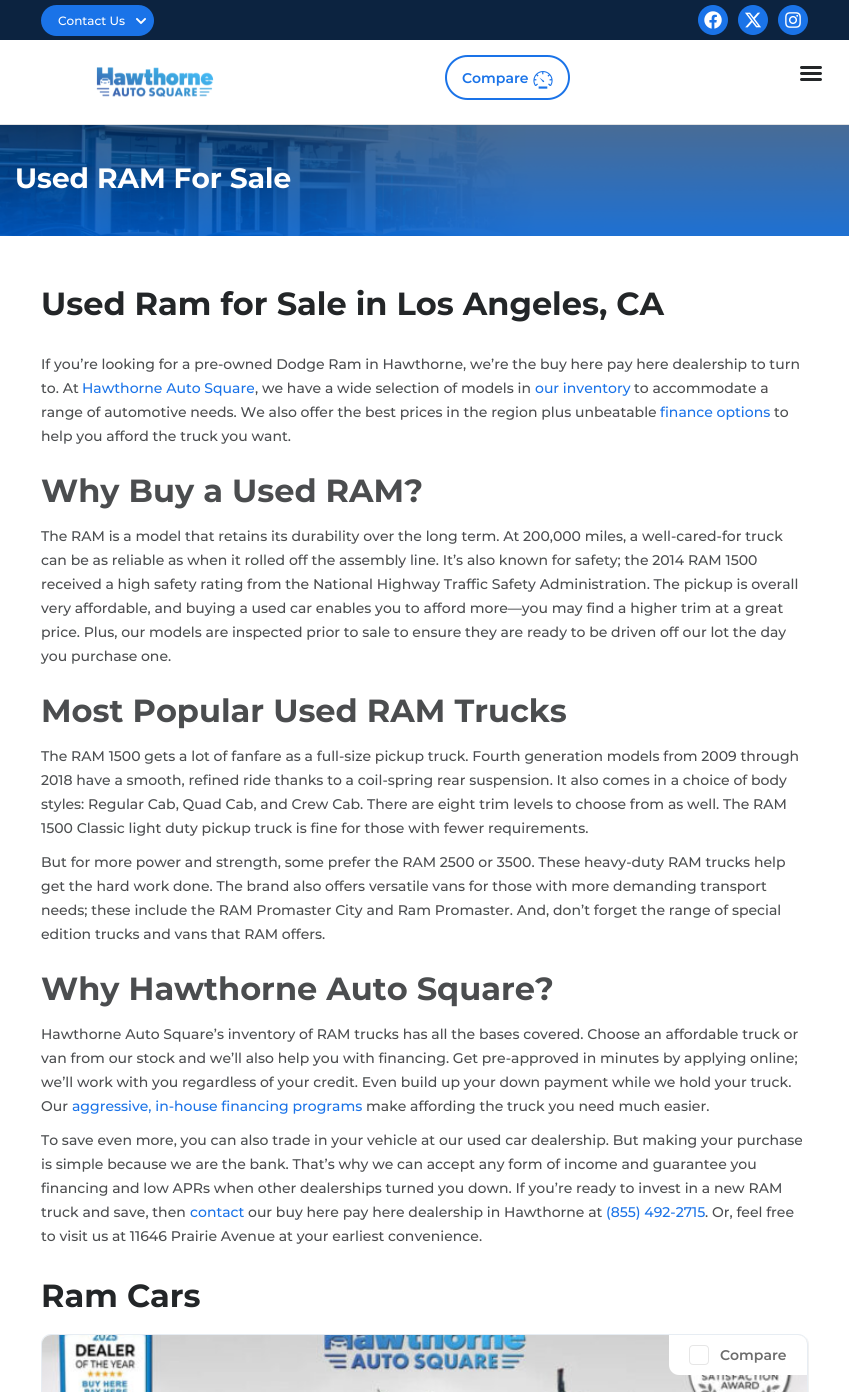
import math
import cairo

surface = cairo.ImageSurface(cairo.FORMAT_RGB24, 849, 1392)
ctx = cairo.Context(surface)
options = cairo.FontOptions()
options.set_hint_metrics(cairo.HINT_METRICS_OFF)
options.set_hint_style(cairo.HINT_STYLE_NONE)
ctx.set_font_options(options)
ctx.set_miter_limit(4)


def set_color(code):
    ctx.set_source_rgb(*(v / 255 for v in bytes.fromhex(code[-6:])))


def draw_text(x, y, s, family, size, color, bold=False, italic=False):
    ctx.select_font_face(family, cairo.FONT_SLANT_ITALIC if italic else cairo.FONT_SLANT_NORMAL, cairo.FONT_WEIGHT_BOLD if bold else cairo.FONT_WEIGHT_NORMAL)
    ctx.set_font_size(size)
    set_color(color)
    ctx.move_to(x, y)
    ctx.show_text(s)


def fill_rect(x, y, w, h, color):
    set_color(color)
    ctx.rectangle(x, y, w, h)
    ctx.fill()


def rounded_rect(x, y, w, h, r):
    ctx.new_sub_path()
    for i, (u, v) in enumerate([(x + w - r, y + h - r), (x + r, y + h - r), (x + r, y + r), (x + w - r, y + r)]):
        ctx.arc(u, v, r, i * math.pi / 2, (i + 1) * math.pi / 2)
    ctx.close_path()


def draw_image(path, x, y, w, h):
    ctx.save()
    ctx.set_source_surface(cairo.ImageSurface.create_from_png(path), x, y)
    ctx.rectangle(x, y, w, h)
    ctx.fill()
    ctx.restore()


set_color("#ffffff")
ctx.paint()
fill_rect(0, 0, 849, 40, "#0c2340")
set_color("#1a73e8")
rounded_rect(42, 6, 111, 29, 14.5)
ctx.fill_preserve()
ctx.stroke()
draw_text(58, 25, "Contact Us", "Montserrat Medium", 12, "#ffffff")
draw_image("assets/img1.png", 136, 18, 10, 6)
set_color("#1a73e8")
ctx.arc(713, 20, 15, 0, 2 * math.pi)
ctx.fill()
draw_image("assets/img2.png", 704, 11, 18, 18)
ctx.arc(753, 20, 15, 0, 2 * math.pi)
ctx.fill()
draw_image("assets/img3.png", 745, 12, 16, 16)
ctx.arc(793, 20, 15, 0, 2 * math.pi)
ctx.fill()
draw_image("assets/img4.png", 785, 12, 16, 16)
fill_rect(0, 124, 849, 1, "#e2e3e3")
draw_image("assets/img5.png", 96, 67, 118, 31)
rounded_rect(446, 56, 123, 43, 21.5)
set_color("#1a73e8")
ctx.stroke()
draw_text(462, 83, "Compare", "Montserrat SemiBold", 14, "#1a73e8")
draw_image("assets/img6.png", 533, 71, 20, 18)
draw_image("assets/img7.png", 800, 66, 22, 15)
draw_image("assets/img8.png", 0, 125, 849, 111)
draw_text(15, 188, "Used RAM For Sale", "Montserrat", 28, "#ffffff", bold=True)
draw_text(41, 315, "Used Ram for Sale in Los Angeles, CA", "Montserrat", 32, "#232628", bold=True)
draw_text(41, 369, "If you’re looking for a pre-owned Dodge Ram in Hawthorne, we’re the buy here pay here dealership to turn", "Montserrat Medium", 14, "#4b4d4f")
draw_text(41, 393, "to. At", "Montserrat Medium", 14, "#4b4d4f")
draw_text(82, 393, "Hawthorne Auto Square", "Montserrat Medium", 14, "#1a73e8")
draw_text(255, 393, ", we have a wide selection of models in", "Montserrat Medium", 14, "#4b4d4f")
draw_text(535, 393, "our inventory", "Montserrat Medium", 14, "#1a73e8")
draw_text(634, 393, "to accommodate a", "Montserrat Medium", 14, "#4b4d4f")
draw_text(41, 417, "range of automotive needs. We also offer the best prices in the region plus unbeatable", "Montserrat Medium", 14, "#4b4d4f")
draw_text(660, 417, "finance options", "Montserrat Medium", 14, "#1a73e8")
draw_text(774, 417, "to", "Montserrat Medium", 14, "#4b4d4f")
draw_text(41, 441, "help you afford the truck you want.", "Montserrat Medium", 14, "#4b4d4f")
draw_text(41, 502, "Why Buy a Used RAM?", "Montserrat", 32, "#4b4d4f", bold=True)
draw_text(41, 541, "The RAM is a model that retains its durability over the long term. At 200,000 miles, a well-cared-for truck", "Montserrat Medium", 14, "#4b4d4f")
draw_text(41, 565, "can be as reliable as when it rolled off the assembly line. It’s also known for safety; the 2014 RAM 1500", "Montserrat Medium", 14, "#4b4d4f")
draw_text(41, 589, "received a high safety rating from the National Highway Traffic Safety Administration. The pickup is overall", "Montserrat Medium", 14, "#4b4d4f")
draw_text(41, 613, "very affordable, and buying a used car enables you to afford more—you may find a higher trim at a great", "Montserrat Medium", 14, "#4b4d4f")
draw_text(41, 637, "price. Plus, our models are inspected prior to sale to ensure they are ready to be driven off our lot the day", "Montserrat Medium", 14, "#4b4d4f")
draw_text(41, 661, "you purchase one.", "Montserrat Medium", 14, "#4b4d4f")
draw_text(41, 722, "Most Popular Used RAM Trucks", "Montserrat", 32, "#4b4d4f", bold=True)
draw_text(41, 761, "The RAM 1500 gets a lot of fanfare as a full-size pickup truck. Fourth generation models from 2009 through", "Montserrat Medium", 14, "#4b4d4f")
draw_text(41, 785, "2018 have a smooth, refined ride thanks to a coil-spring rear suspension. It also comes in a choice of body", "Montserrat Medium", 14, "#4b4d4f")
draw_text(41, 809, "styles: Regular Cab, Quad Cab, and Crew Cab. There are eight trim levels to choose from as well. The RAM", "Montserrat Medium", 14, "#4b4d4f")
draw_text(41, 833, "1500 Classic light duty pickup truck is fine for those with fewer requirements.", "Montserrat Medium", 14, "#4b4d4f")
draw_text(41, 867, "But for more power and strength, some prefer the RAM 2500 or 3500. These heavy-duty RAM trucks help", "Montserrat Medium", 14, "#4b4d4f")
draw_text(41, 891, "get the hard work done. The brand also offers versatile vans for those with more demanding transport", "Montserrat Medium", 14, "#4b4d4f")
draw_text(41, 915, "needs; these include the RAM Promaster City and Ram Promaster. And, don’t forget the range of special", "Montserrat Medium", 14, "#4b4d4f")
draw_text(41, 939, "edition trucks and vans that RAM offers.", "Montserrat Medium", 14, "#4b4d4f")
draw_text(41, 1000, "Why Hawthorne Auto Square?", "Montserrat", 32, "#4b4d4f", bold=True)
draw_text(41, 1039, "Hawthorne Auto Square’s inventory of RAM trucks has all the bases covered. Choose an affordable truck or", "Montserrat Medium", 14, "#4b4d4f")
draw_text(41, 1063, "van from our stock and we’ll also help you with financing. Get pre-approved in minutes by applying online;", "Montserrat Medium", 14, "#4b4d4f")
draw_text(41, 1087, "we’ll work with you regardless of your credit. Even build up your down payment while we hold your truck.", "Montserrat Medium", 14, "#4b4d4f")
draw_text(41, 1111, "Our", "Montserrat Medium", 14, "#4b4d4f")
draw_text(72, 1111, "aggressive, in-house financing programs", "Montserrat Medium", 14, "#1a73e8")
draw_text(366, 1111, "make affording the truck you need much easier.", "Montserrat Medium", 14, "#4b4d4f")
draw_text(41, 1145, "To save even more, you can also trade in your vehicle at our used car dealership. But making your purchase", "Montserrat Medium", 14, "#4b4d4f")
draw_text(41, 1169, "is simple because we are the bank. That’s why we can accept any form of income and guarantee you", "Montserrat Medium", 14, "#4b4d4f")
draw_text(41, 1193, "financing and low APRs when other dealerships turned you down. If you’re ready to invest in a new RAM", "Montserrat Medium", 14, "#4b4d4f")
draw_text(41, 1217, "truck and save, then", "Montserrat Medium", 14, "#4b4d4f")
draw_text(190, 1217, "contact", "Montserrat Medium", 14, "#1a73e8")
draw_text(248, 1217, "our buy here pay here dealership in Hawthorne at", "Montserrat Medium", 14, "#4b4d4f")
draw_text(606, 1217, "(855) 492-2715", "Montserrat Medium", 14, "#1a73e8")
draw_text(705, 1217, ". Or, feel free", "Montserrat Medium", 14, "#4b4d4f")
draw_text(41, 1241, "to visit us at 11646 Prairie Avenue at your earliest convenience.", "Montserrat Medium", 14, "#4b4d4f")
draw_text(41, 1307, "Ram Cars", "Montserrat", 32, "#232628", bold=True)
set_color("#f1f1f1")
ctx.new_path()
ctx.move_to(44, 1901)
ctx.curve_to(46, 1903, 49, 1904, 52, 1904)
ctx.line_to(799, 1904)
ctx.curve_to(805, 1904, 809, 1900, 809, 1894)
ctx.line_to(809, 1345)
ctx.curve_to(809, 1342, 808, 1339, 806, 1337)
ctx.curve_to(807, 1339, 808, 1341, 808, 1344)
ctx.line_to(808, 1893)
ctx.curve_to(808, 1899, 804, 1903, 798, 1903)
ctx.line_to(51, 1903)
ctx.curve_to(48, 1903, 46, 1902, 44, 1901)
ctx.close_path()
ctx.fill()
rounded_rect(41.5, 1334.5, 766, 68, 9.5)
set_color("#e7edf3")
ctx.set_line_width(1)
ctx.stroke()
set_color("#eff0f1")
ctx.new_path()
ctx.move_to(51, 1335)
ctx.line_to(798, 1335)
ctx.curve_to(803, 1335, 807, 1339, 807, 1344)
ctx.line_to(807, 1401)
ctx.line_to(42, 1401)
ctx.line_to(42, 1344)
ctx.curve_to(42, 1339, 46, 1335, 51, 1335)
ctx.close_path()
ctx.fill()
draw_image("assets/img9.png", 42, 1335, 765, 57)
set_color("#ffffff")
ctx.new_path()
ctx.move_to(669, 1335)
ctx.line_to(798, 1335)
ctx.curve_to(803, 1335, 807, 1339, 807, 1344)
ctx.line_to(807, 1375)
ctx.line_to(679, 1375)
ctx.curve_to(673.5, 1375, 669, 1370.5, 669, 1365)
ctx.close_path()
ctx.fill()
rounded_rect(689.5, 1345.5, 19, 19, 3.5)
set_color("#e6e6e6")
ctx.stroke()
draw_text(720, 1360, "Compare", "Montserrat SemiBold", 14, "#6d6d6d")
surface.write_to_png("output.png")
